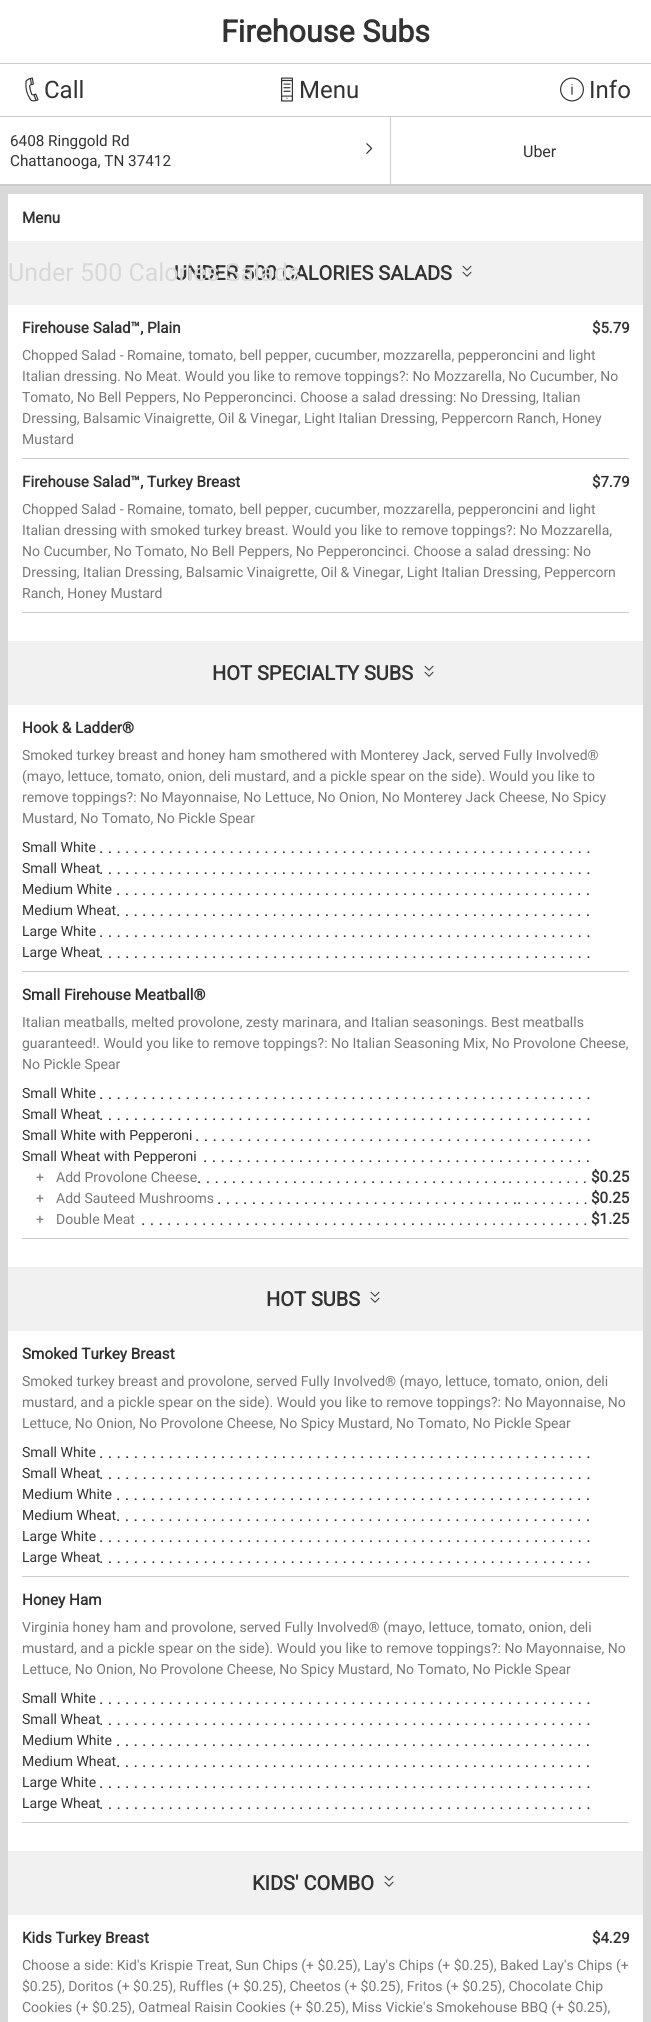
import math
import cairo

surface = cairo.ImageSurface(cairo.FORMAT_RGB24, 651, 2022)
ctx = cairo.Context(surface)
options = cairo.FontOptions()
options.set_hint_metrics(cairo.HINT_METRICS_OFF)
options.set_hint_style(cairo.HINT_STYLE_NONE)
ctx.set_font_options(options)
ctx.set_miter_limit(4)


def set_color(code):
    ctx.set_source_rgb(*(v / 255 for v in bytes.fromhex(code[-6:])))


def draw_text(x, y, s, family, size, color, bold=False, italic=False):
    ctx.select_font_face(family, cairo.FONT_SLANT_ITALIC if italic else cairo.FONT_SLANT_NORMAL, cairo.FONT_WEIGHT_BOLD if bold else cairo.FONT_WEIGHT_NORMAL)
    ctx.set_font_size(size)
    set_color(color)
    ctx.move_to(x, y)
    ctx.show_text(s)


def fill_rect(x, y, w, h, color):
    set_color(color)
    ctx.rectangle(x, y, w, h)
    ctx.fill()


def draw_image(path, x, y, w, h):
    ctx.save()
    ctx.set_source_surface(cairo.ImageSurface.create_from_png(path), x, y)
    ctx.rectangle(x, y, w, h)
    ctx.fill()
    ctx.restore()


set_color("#ffffff")
ctx.paint()
draw_text(221, 42, "Firehouse Subs", "Roboto", 30.5, "#333333", bold=True)
fill_rect(0, 63, 651, 1, "#cccccc")
fill_rect(0, 116, 651, 1, "#cccccc")
draw_image("assets/img1.png", 25, 77, 14, 25)
draw_text(44, 98, "Call", "Roboto", 24, "#333333")
draw_image("assets/img2.png", 281, 77, 12, 25)
draw_text(299, 98, "Menu", "Roboto", 24, "#333333")
draw_image("assets/img3.png", 560, 77, 24, 25)
draw_text(589, 98, "Info", "Roboto", 24, "#333333")
fill_rect(390, 117, 1, 68, "#cccccc")
fill_rect(0, 184, 391, 1, "#cccccc")
draw_text(10, 146, "6408 Ringgold Rd", "Roboto", 15.25, "#333333")
draw_text(10, 166, "Chattanooga, TN 37412", "Roboto", 15.25, "#333333")
draw_image("assets/img4.png", 366, 143, 7, 11)
fill_rect(391, 184, 260, 1, "#cccccc")
draw_text(523, 157, "Uber", "Roboto", 16, "#333333")
fill_rect(0, 185, 651, 1, "#cccccc")
ctx.rectangle(4, 190, 643, 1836)
set_color("#d9d9d9")
ctx.set_line_width(8)
ctx.stroke()
draw_text(22, 223, "Menu", "Roboto", 15.25, "#333333", bold=True)
fill_rect(8, 241, 635, 64, "#f1f1f1")
draw_text(174, 280, "UNDER 500 CALORIES SALADS", "Roboto", 20, "#333333", bold=True)
draw_text(8, 281, "Under 500 Calories Salads", "Roboto", 25, "#d8d8d8")
draw_image("assets/img5.png", 462, 265, 10, 12)
draw_text(22, 333, "Firehouse Salad™, Plain", "Roboto", 15.25, "#333333", bold=True)
draw_text(592, 333, "$5.79", "Roboto", 15, "#333333", bold=True)
draw_text(22, 360, "Chopped Salad - Romaine, tomato, bell pepper, cucumber, mozzarella, pepperoncini and light", "Roboto", 14, "#777777")
draw_text(22, 381, "Italian dressing. No Meat. Would you like to remove toppings?: No Mozzarella, No Cucumber, No", "Roboto", 14, "#777777")
draw_text(22, 402, "Tomato, No Bell Peppers, No Pepperoncinci. Choose a salad dressing: No Dressing, Italian", "Roboto", 14, "#777777")
draw_text(22, 423, "Dressing, Balsamic Vinaigrette, Oil & Vinegar, Light Italian Dressing, Peppercorn Ranch, Honey", "Roboto", 14, "#777777")
draw_text(22, 444, "Mustard", "Roboto", 14, "#777777")
fill_rect(22, 458, 607, 1, "#cccccc")
draw_text(22, 487, "Firehouse Salad™, Turkey Breast", "Roboto", 15.25, "#333333", bold=True)
draw_text(592, 487, "$7.79", "Roboto", 15, "#333333", bold=True)
draw_text(22, 514, "Chopped Salad - Romaine, tomato, bell pepper, cucumber, mozzarella, pepperoncini and light", "Roboto", 14, "#777777")
draw_text(22, 535, "Italian dressing with smoked turkey breast. Would you like to remove toppings?: No Mozzarella,", "Roboto", 14, "#777777")
draw_text(22, 556, "No Cucumber, No Tomato, No Bell Peppers, No Pepperoncinci. Choose a salad dressing: No", "Roboto", 14, "#777777")
draw_text(22, 577, "Dressing, Italian Dressing, Balsamic Vinaigrette, Oil & Vinegar, Light Italian Dressing, Peppercorn", "Roboto", 14, "#777777")
draw_text(22, 598, "Ranch, Honey Mustard", "Roboto", 14, "#777777")
fill_rect(22, 612, 607, 1, "#cccccc")
fill_rect(8, 641, 635, 64, "#f1f1f1")
draw_text(212, 680, "HOT SPECIALTY SUBS", "Roboto", 20, "#333333", bold=True)
draw_image("assets/img5.png", 424, 665, 10, 12)
draw_text(22, 733, "Hook & Ladder®", "Roboto", 15.25, "#333333", bold=True)
draw_text(22, 760, "Smoked turkey breast and honey ham smothered with Monterey Jack, served Fully Involved®", "Roboto", 14, "#777777")
draw_text(22, 781, "(mayo, lettuce, tomato, onion, deli mustard, and a pickle spear on the side). Would you like to", "Roboto", 14, "#777777")
draw_text(22, 802, "remove toppings?: No Mayonnaise, No Lettuce, No Onion, No Monterey Jack Cheese, No Spicy", "Roboto", 14, "#777777")
draw_text(22, 823, "Mustard, No Tomato, No Pickle Spear", "Roboto", 14, "#777777")
draw_text(22, 852, "Small White", "Roboto", 14, "#333333")
draw_text(99, 853, ". . . . . . . . . . . . . . . . . . . . . . . . . . . . . . . . . . . . . . . . . . . . . . . . . . . . . . . . .", "Roboto", 17, "#333333")
draw_text(22, 873, "Small Wheat", "Roboto", 14, "#333333")
draw_text(99, 874, ". . . . . . . . . . . . . . . . . . . . . . . . . . . . . . . . . . . . . . . . . . . . . . . . . . . . . . . . .", "Roboto", 17, "#333333")
draw_text(22, 894, "Medium White", "Roboto", 14, "#333333")
draw_text(116, 895, ". . . . . . . . . . . . . . . . . . . . . . . . . . . . . . . . . . . . . . . . . . . . . . . . . . . . . . .", "Roboto", 17, "#333333")
draw_text(22, 915, "Medium Wheat", "Roboto", 14, "#333333")
draw_text(116, 916, ". . . . . . . . . . . . . . . . . . . . . . . . . . . . . . . . . . . . . . . . . . . . . . . . . . . . . . .", "Roboto", 17, "#333333")
draw_text(22, 936, "Large White", "Roboto", 14, "#333333")
draw_text(99, 937, ". . . . . . . . . . . . . . . . . . . . . . . . . . . . . . . . . . . . . . . . . . . . . . . . . . . . . . . . .", "Roboto", 17, "#333333")
draw_text(22, 957, "Large Wheat", "Roboto", 14, "#333333")
draw_text(99, 958, ". . . . . . . . . . . . . . . . . . . . . . . . . . . . . . . . . . . . . . . . . . . . . . . . . . . . . . . . .", "Roboto", 17, "#333333")
fill_rect(22, 971, 607, 1, "#cccccc")
draw_text(22, 1000, "Small Firehouse Meatball®", "Roboto", 15.25, "#333333", bold=True)
draw_text(22, 1027, "Italian meatballs, melted provolone, zesty marinara, and Italian seasonings. Best meatballs", "Roboto", 14, "#777777")
draw_text(22, 1048, "guaranteed!. Would you like to remove toppings?: No Italian Seasoning Mix, No Provolone Cheese,", "Roboto", 14, "#777777")
draw_text(22, 1069, "No Pickle Spear", "Roboto", 14, "#777777")
draw_text(22, 1098, "Small White", "Roboto", 14, "#333333")
draw_text(99, 1099, ". . . . . . . . . . . . . . . . . . . . . . . . . . . . . . . . . . . . . . . . . . . . . . . . . . . . . . . . .", "Roboto", 17, "#333333")
draw_text(22, 1119, "Small Wheat", "Roboto", 14, "#333333")
draw_text(99, 1120, ". . . . . . . . . . . . . . . . . . . . . . . . . . . . . . . . . . . . . . . . . . . . . . . . . . . . . . . . .", "Roboto", 17, "#333333")
draw_text(22, 1140, "Small White with Pepperoni", "Roboto", 14, "#333333")
draw_text(195, 1141, ". . . . . . . . . . . . . . . . . . . . . . . . . . . . . . . . . . . . . . . . . . . . . .", "Roboto", 17, "#333333")
draw_text(22, 1161, "Small Wheat with Pepperoni", "Roboto", 14, "#333333")
draw_text(203, 1162, ". . . . . . . . . . . . . . . . . . . . . . . . . . . . . . . . . . . . . . . . . . . . .", "Roboto", 17, "#333333")
draw_text(36, 1182, "+", "Roboto", 14, "#777777")
draw_text(56, 1182, "Add Provolone Cheese", "Roboto", 14, "#777777")
draw_text(197, 1183, ". . . . . . . . . . . . . . . . . . . . . . . . . . . . . . . . . . . .", "Roboto", 17, "#333333")
draw_text(508, 1183, ". . . . . . . . . .", "Roboto", 16.25, "#333333")
draw_text(591, 1182, "$0.25", "Roboto", 15.25, "#333333", bold=True)
draw_text(36, 1203, "+", "Roboto", 14, "#777777")
draw_text(56, 1203, "Add Sauteed Mushrooms", "Roboto", 14, "#777777")
draw_text(217, 1204, ". . . . . . . . . . . . . . . . . . . . . . . . . . . . . . . . . . .", "Roboto", 17, "#333333")
draw_text(517, 1204, ". . . . . . . . .", "Roboto", 16.25, "#333333")
draw_text(591, 1203, "$0.25", "Roboto", 15.25, "#333333", bold=True)
draw_text(36, 1224, "+", "Roboto", 14, "#777777")
draw_text(56, 1224, "Double Meat", "Roboto", 14, "#777777")
draw_text(141, 1225, ". . . . . . . . . . . . . . . . . . . . . . . . . . . . . . . . . . .", "Roboto", 17, "#333333")
draw_text(442, 1225, ". . . . . . . . . . . . . . . . . .", "Roboto", 16.25, "#333333")
draw_text(591, 1224, "$1.25", "Roboto", 15.25, "#333333", bold=True)
fill_rect(22, 1238, 607, 1, "#cccccc")
fill_rect(8, 1267, 635, 64, "#f1f1f1")
draw_text(266, 1306, "HOT SUBS", "Roboto", 20, "#333333", bold=True)
draw_image("assets/img5.png", 370, 1291, 10, 12)
draw_text(22, 1359, "Smoked Turkey Breast", "Roboto", 15.25, "#333333", bold=True)
draw_text(22, 1386, "Smoked turkey breast and provolone, served Fully Involved® (mayo, lettuce, tomato, onion, deli", "Roboto", 14, "#777777")
draw_text(22, 1407, "mustard, and a pickle spear on the side). Would you like to remove toppings?: No Mayonnaise, No", "Roboto", 14, "#777777")
draw_text(22, 1428, "Lettuce, No Onion, No Provolone Cheese, No Spicy Mustard, No Tomato, No Pickle Spear", "Roboto", 14, "#777777")
draw_text(22, 1457, "Small White", "Roboto", 14, "#333333")
draw_text(99, 1458, ". . . . . . . . . . . . . . . . . . . . . . . . . . . . . . . . . . . . . . . . . . . . . . . . . . . . . . . . .", "Roboto", 17, "#333333")
draw_text(22, 1478, "Small Wheat", "Roboto", 14, "#333333")
draw_text(99, 1479, ". . . . . . . . . . . . . . . . . . . . . . . . . . . . . . . . . . . . . . . . . . . . . . . . . . . . . . . . .", "Roboto", 17, "#333333")
draw_text(22, 1499, "Medium White", "Roboto", 14, "#333333")
draw_text(116, 1500, ". . . . . . . . . . . . . . . . . . . . . . . . . . . . . . . . . . . . . . . . . . . . . . . . . . . . . . .", "Roboto", 17, "#333333")
draw_text(22, 1520, "Medium Wheat", "Roboto", 14, "#333333")
draw_text(116, 1521, ". . . . . . . . . . . . . . . . . . . . . . . . . . . . . . . . . . . . . . . . . . . . . . . . . . . . . . .", "Roboto", 17, "#333333")
draw_text(22, 1541, "Large White", "Roboto", 14, "#333333")
draw_text(99, 1542, ". . . . . . . . . . . . . . . . . . . . . . . . . . . . . . . . . . . . . . . . . . . . . . . . . . . . . . . . .", "Roboto", 17, "#333333")
draw_text(22, 1562, "Large Wheat", "Roboto", 14, "#333333")
draw_text(99, 1563, ". . . . . . . . . . . . . . . . . . . . . . . . . . . . . . . . . . . . . . . . . . . . . . . . . . . . . . . . .", "Roboto", 17, "#333333")
fill_rect(22, 1576, 607, 1, "#cccccc")
draw_text(22, 1605, "Honey Ham", "Roboto", 15.25, "#333333", bold=True)
draw_text(22, 1632, "Virginia honey ham and provolone, served Fully Involved® (mayo, lettuce, tomato, onion, deli", "Roboto", 14, "#777777")
draw_text(22, 1653, "mustard, and a pickle spear on the side). Would you like to remove toppings?: No Mayonnaise, No", "Roboto", 14, "#777777")
draw_text(22, 1674, "Lettuce, No Onion, No Provolone Cheese, No Spicy Mustard, No Tomato, No Pickle Spear", "Roboto", 14, "#777777")
draw_text(22, 1703, "Small White", "Roboto", 14, "#333333")
draw_text(99, 1704, ". . . . . . . . . . . . . . . . . . . . . . . . . . . . . . . . . . . . . . . . . . . . . . . . . . . . . . . . .", "Roboto", 17, "#333333")
draw_text(22, 1724, "Small Wheat", "Roboto", 14, "#333333")
draw_text(99, 1725, ". . . . . . . . . . . . . . . . . . . . . . . . . . . . . . . . . . . . . . . . . . . . . . . . . . . . . . . . .", "Roboto", 17, "#333333")
draw_text(22, 1745, "Medium White", "Roboto", 14, "#333333")
draw_text(116, 1746, ". . . . . . . . . . . . . . . . . . . . . . . . . . . . . . . . . . . . . . . . . . . . . . . . . . . . . . .", "Roboto", 17, "#333333")
draw_text(22, 1766, "Medium Wheat", "Roboto", 14, "#333333")
draw_text(116, 1767, ". . . . . . . . . . . . . . . . . . . . . . . . . . . . . . . . . . . . . . . . . . . . . . . . . . . . . . .", "Roboto", 17, "#333333")
draw_text(22, 1787, "Large White", "Roboto", 14, "#333333")
draw_text(99, 1788, ". . . . . . . . . . . . . . . . . . . . . . . . . . . . . . . . . . . . . . . . . . . . . . . . . . . . . . . . .", "Roboto", 17, "#333333")
draw_text(22, 1808, "Large Wheat", "Roboto", 14, "#333333")
draw_text(99, 1809, ". . . . . . . . . . . . . . . . . . . . . . . . . . . . . . . . . . . . . . . . . . . . . . . . . . . . . . . . .", "Roboto", 17, "#333333")
fill_rect(22, 1822, 607, 1, "#cccccc")
fill_rect(8, 1851, 635, 64, "#f1f1f1")
draw_text(252, 1890, "KIDS' COMBO", "Roboto", 20, "#333333", bold=True)
draw_image("assets/img5.png", 384, 1875, 10, 12)
draw_text(22, 1943, "Kids Turkey Breast", "Roboto", 15.25, "#333333", bold=True)
draw_text(592, 1943, "$4.29", "Roboto", 15, "#333333", bold=True)
draw_text(22, 1970, "Choose a side: Kid's Krispie Treat, Sun Chips (+ $0.25), Lay's Chips (+ $0.25), Baked Lay's Chips (+", "Roboto", 14, "#777777")
draw_text(22, 1991, "$0.25), Doritos (+ $0.25), Ruffles (+ $0.25), Cheetos (+ $0.25), Fritos (+ $0.25), Chocolate Chip", "Roboto", 14, "#777777")
draw_text(22, 2012, "Cookies (+ $0.25), Oatmeal Raisin Cookies (+ $0.25), Miss Vickie's Smokehouse BBQ (+ $0.25),", "Roboto", 14, "#777777")
surface.write_to_png("output.png")
